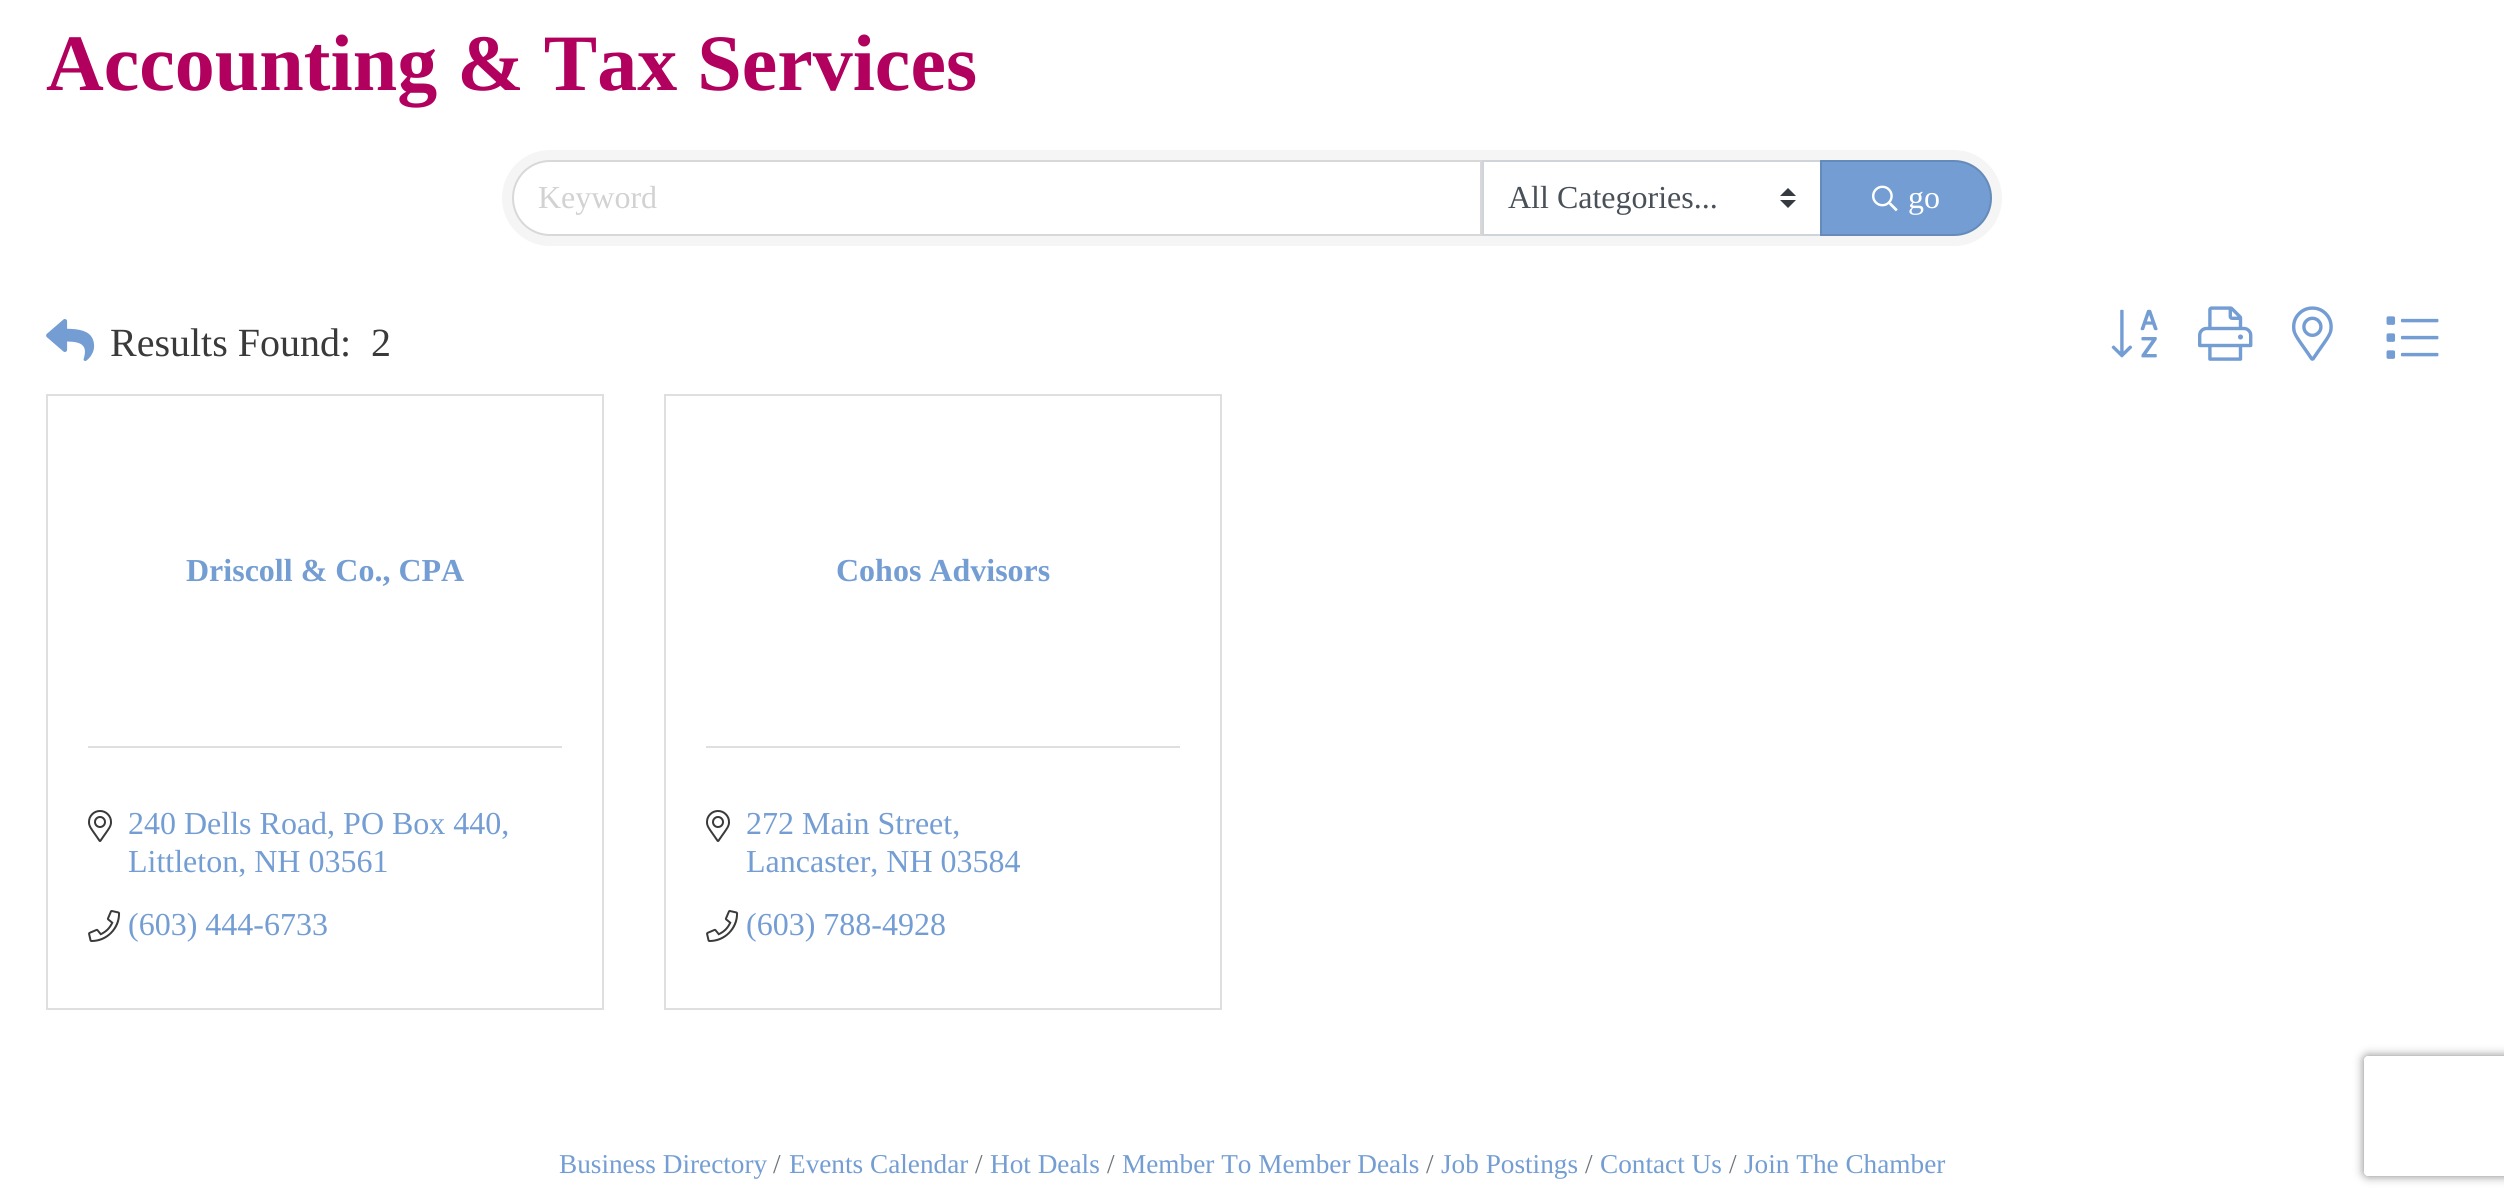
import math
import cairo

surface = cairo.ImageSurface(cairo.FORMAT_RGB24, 2504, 1204)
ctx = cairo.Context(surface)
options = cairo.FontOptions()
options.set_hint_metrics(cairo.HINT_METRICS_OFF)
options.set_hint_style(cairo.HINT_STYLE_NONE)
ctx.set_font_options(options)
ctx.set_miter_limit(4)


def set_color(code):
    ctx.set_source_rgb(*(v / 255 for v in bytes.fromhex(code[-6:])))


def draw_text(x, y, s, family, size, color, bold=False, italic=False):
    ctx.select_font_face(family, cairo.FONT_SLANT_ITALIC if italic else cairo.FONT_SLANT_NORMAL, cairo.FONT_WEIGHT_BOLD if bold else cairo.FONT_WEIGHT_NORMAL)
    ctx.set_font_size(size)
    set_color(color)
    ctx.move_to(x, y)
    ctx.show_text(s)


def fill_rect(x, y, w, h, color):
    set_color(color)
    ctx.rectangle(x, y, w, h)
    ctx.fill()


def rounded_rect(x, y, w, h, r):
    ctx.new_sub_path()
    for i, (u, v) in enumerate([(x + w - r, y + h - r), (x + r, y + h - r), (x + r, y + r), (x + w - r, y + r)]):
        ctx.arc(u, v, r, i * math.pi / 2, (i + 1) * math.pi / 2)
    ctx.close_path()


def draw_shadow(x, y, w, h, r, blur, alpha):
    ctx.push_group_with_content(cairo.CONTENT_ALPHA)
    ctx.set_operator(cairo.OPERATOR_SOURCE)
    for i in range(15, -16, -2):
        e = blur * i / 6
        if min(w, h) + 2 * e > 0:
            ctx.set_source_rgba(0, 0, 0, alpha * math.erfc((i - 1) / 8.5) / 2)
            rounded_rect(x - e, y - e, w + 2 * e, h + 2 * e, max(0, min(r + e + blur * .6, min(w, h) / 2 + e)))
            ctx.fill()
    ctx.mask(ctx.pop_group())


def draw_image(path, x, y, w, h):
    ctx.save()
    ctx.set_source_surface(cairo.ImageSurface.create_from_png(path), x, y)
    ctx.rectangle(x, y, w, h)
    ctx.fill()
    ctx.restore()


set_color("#ffffff")
ctx.paint()
draw_text(46, 90, "Accounting & Tax Services", "Liberation Serif", 80, "#b1005d", bold=True)
set_color("#f5f5f5")
rounded_rect(502, 150, 1500, 96, 48)
ctx.fill()
set_color("#ffffff")
ctx.new_path()
ctx.move_to(550, 162)
ctx.line_to(1480, 162)
ctx.line_to(1480, 234)
ctx.line_to(550, 234)
ctx.curve_to(530, 234, 514, 218, 514, 198)
ctx.curve_to(514, 178, 530, 162, 550, 162)
ctx.close_path()
ctx.fill()
ctx.new_path()
ctx.move_to(550, 161)
ctx.line_to(1481, 161)
ctx.line_to(1481, 235)
ctx.line_to(550, 235)
ctx.curve_to(529.5, 235, 513, 218.5, 513, 198)
ctx.curve_to(513, 177.5, 529.5, 161, 550, 161)
ctx.close_path()
ctx.set_source_rgba(0, 0, 0, 0.12)
ctx.stroke()
draw_text(538, 208, "Keyword", "Liberation Serif", 32, "#d2d2d2")
fill_rect(1484, 162, 336, 72, "#ffffff")
set_color("#343a40")
ctx.new_path()
ctx.move_to(1788, 188)
ctx.line_to(1780, 196)
ctx.line_to(1796, 196)
ctx.close_path()
ctx.move_to(1788, 208)
ctx.line_to(1780, 200)
ctx.line_to(1796, 200)
ctx.close_path()
ctx.fill()
ctx.rectangle(1483, 161, 338, 74)
set_color("#ced4da")
ctx.stroke()
draw_text(1508, 208, "All Categories...", "Liberation Serif", 32, "#495057")
set_color("#739dd3")
ctx.new_path()
ctx.move_to(1820, 160)
ctx.line_to(1954, 160)
ctx.curve_to(1975, 160, 1992, 177, 1992, 198)
ctx.curve_to(1992, 219, 1975, 236, 1954, 236)
ctx.line_to(1820, 236)
ctx.close_path()
ctx.fill()
ctx.new_path()
ctx.move_to(1821, 161)
ctx.line_to(1954, 161)
ctx.curve_to(1974.5, 161, 1991, 177.5, 1991, 198)
ctx.curve_to(1991, 218.5, 1974.5, 235, 1954, 235)
ctx.line_to(1821, 235)
ctx.close_path()
ctx.set_source_rgba(0, 0, 0, 0.12)
ctx.stroke()
draw_image("assets/img1.png", 1872, 185, 26, 27)
draw_text(1908, 208, "go", "Liberation Serif", 32, "#ffffff")
draw_image("assets/img2.png", 46, 319, 49, 42)
draw_text(110, 356, "Results Found:", "Liberation Serif", 40, "#3a3a3a")
draw_text(371, 356, "2", "Liberation Serif", 40, "#3a3a3a")
draw_image("assets/img3.png", 2111, 309, 47, 49)
draw_image("assets/img4.png", 2198, 306, 55, 55)
draw_image("assets/img5.png", 2292, 306, 41, 55)
draw_image("assets/img6.png", 2386, 316, 53, 43)
ctx.rectangle(47, 395, 556, 614)
set_color("#dfdfdf")
ctx.stroke()
draw_text(186, 581, "Driscoll & Co., CPA", "Liberation Serif", 32, "#739dd3", bold=True)
fill_rect(88, 746, 474, 2, "#dfdfdf")
draw_image("assets/img7.png", 88, 810, 24, 32)
draw_text(128, 834, "240 Dells Road, PO Box 440,", "Liberation Serif", 32, "#739dd3")
draw_text(128, 872, "Littleton, NH 03561", "Liberation Serif", 32, "#739dd3")
draw_image("assets/img8.png", 88, 910, 33, 32)
draw_text(128, 935, "(603) 444-6733", "Liberation Serif", 32, "#739dd3")
ctx.rectangle(665, 395, 556, 614)
set_color("#dfdfdf")
ctx.stroke()
draw_text(836, 581, "Cohos Advisors", "Liberation Serif", 32, "#739dd3", bold=True)
fill_rect(706, 746, 474, 2, "#dfdfdf")
draw_image("assets/img7.png", 706, 810, 24, 32)
draw_text(746, 834, "272 Main Street,", "Liberation Serif", 32, "#739dd3")
draw_text(746, 872, "Lancaster, NH 03584", "Liberation Serif", 32, "#739dd3")
draw_image("assets/img8.png", 706, 910, 33, 32)
draw_text(746, 935, "(603) 788-4928", "Liberation Serif", 32, "#739dd3")
draw_text(559, 1173, "Business Directory", "Liberation Serif", 27.25, "#739dd3")
draw_text(773, 1173, "/", "Liberation Serif", 27.25, "#6c757d")
draw_text(789, 1173, "Events Calendar", "Liberation Serif", 27.25, "#739dd3")
draw_text(975, 1173, "/", "Liberation Serif", 27.25, "#6c757d")
draw_text(990, 1173, "Hot Deals", "Liberation Serif", 27.25, "#739dd3")
draw_text(1107, 1173, "/", "Liberation Serif", 27.25, "#6c757d")
draw_text(1122, 1173, "Member To Member Deals", "Liberation Serif", 27.25, "#739dd3")
draw_text(1426, 1173, "/", "Liberation Serif", 27.25, "#6c757d")
draw_text(1441, 1173, "Job Postings", "Liberation Serif", 27.25, "#739dd3")
draw_text(1585, 1173, "/", "Liberation Serif", 27.25, "#6c757d")
draw_text(1600, 1173, "Contact Us", "Liberation Serif", 27.25, "#739dd3")
draw_text(1729, 1173, "/", "Liberation Serif", 27.25, "#6c757d")
draw_text(1744, 1173, "Join The Chamber", "Liberation Serif", 27.25, "#739dd3")
ctx.save()
ctx.set_fill_rule(cairo.FILL_RULE_EVEN_ODD)
ctx.new_path()
ctx.move_to(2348, 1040)
ctx.line_to(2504, 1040)
ctx.line_to(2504, 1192)
ctx.line_to(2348, 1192)
ctx.close_path()
ctx.move_to(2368, 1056)
ctx.line_to(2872, 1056)
ctx.curve_to(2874, 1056, 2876, 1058, 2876, 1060)
ctx.line_to(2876, 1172)
ctx.curve_to(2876, 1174, 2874, 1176, 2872, 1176)
ctx.line_to(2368, 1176)
ctx.curve_to(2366, 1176, 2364, 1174, 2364, 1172)
ctx.line_to(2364, 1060)
ctx.curve_to(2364, 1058, 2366, 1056, 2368, 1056)
ctx.close_path()
ctx.clip()
set_color("#808080")
draw_shadow(2364, 1056, 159, 120, 4, 5, 1)
ctx.restore()
surface.write_to_png("output.png")
